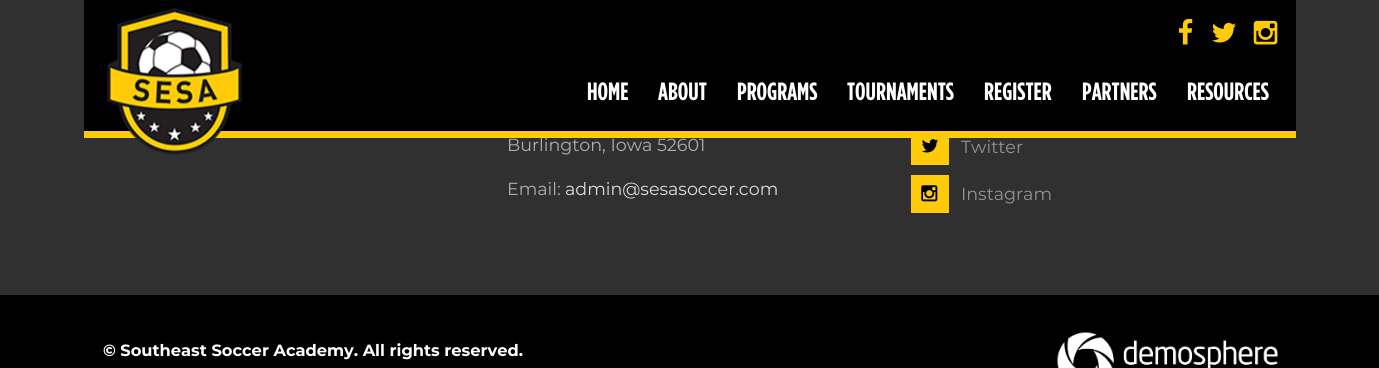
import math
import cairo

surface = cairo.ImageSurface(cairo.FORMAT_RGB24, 1379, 368)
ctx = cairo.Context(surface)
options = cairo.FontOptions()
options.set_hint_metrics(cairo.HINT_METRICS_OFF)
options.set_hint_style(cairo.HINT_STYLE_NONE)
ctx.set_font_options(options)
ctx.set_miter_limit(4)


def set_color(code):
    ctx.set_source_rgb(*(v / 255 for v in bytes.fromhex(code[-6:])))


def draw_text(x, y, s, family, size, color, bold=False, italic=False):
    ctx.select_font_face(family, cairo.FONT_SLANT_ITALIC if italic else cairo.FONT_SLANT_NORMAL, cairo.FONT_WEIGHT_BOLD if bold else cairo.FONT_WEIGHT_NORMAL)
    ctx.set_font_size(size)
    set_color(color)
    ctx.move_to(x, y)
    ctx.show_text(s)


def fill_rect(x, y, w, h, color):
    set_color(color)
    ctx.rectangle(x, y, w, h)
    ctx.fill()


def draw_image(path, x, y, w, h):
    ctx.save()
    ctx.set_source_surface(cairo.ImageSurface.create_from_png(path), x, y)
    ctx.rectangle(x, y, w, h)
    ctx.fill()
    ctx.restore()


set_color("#303030")
ctx.paint()
fill_rect(84, 0, 1212, 131, "#000000")
fill_rect(84, 131, 1212, 7, "#ffcb08")
draw_image("assets/img1.png", 107, 7, 135, 148)
draw_image("assets/img2.png", 1178, 18, 15, 27)
draw_image("assets/img3.png", 1212, 22, 24, 21)
draw_image("assets/img4.png", 1253, 20, 25, 25)
draw_text(587, 100, "HOME", "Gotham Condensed", 25, "#ffffff", bold=True)
draw_text(658, 100, "ABOUT", "Gotham Condensed", 25, "#ffffff", bold=True)
draw_text(737, 100, "PROGRAMS", "Gotham Condensed", 25, "#ffffff", bold=True)
draw_text(847, 100, "TOURNAMENTS", "Gotham Condensed", 25, "#ffffff", bold=True)
draw_text(984, 100, "REGISTER", "Gotham Condensed", 25, "#ffffff", bold=True)
draw_text(1082, 100, "PARTNERS", "Gotham Condensed", 25, "#ffffff", bold=True)
draw_text(1187, 100, "RESOURCES", "Gotham Condensed", 25, "#ffffff", bold=True)
draw_text(507, 151, "Burlington, Iowa 52601", "Montserrat", 17.5, "#adadad")
draw_text(507, 195, "Email:", "Montserrat", 17.5, "#adadad")
draw_text(565, 195, "admin@sesasoccer.com", "Montserrat", 17.5, "#dddddd")
fill_rect(911, 138, 38, 27, "#ffcb08")
draw_image("assets/img5.png", 922, 139, 16, 14)
draw_text(961, 153, "Twitter", "Montserrat", 17.5, "#929292")
fill_rect(911, 175, 38, 38, "#ffcb08")
draw_image("assets/img6.png", 921, 185, 17, 17)
draw_text(961, 200, "Instagram", "Montserrat", 17.5, "#929292")
fill_rect(0, 295, 1379, 73, "#000000")
draw_text(103, 356, "© Southeast Soccer Academy. All rights reserved.", "Montserrat", 16.25, "#ffffff", bold=True)
draw_image("assets/img7.png", 1057, 332, 221, 36)
surface.write_to_png("output.png")
